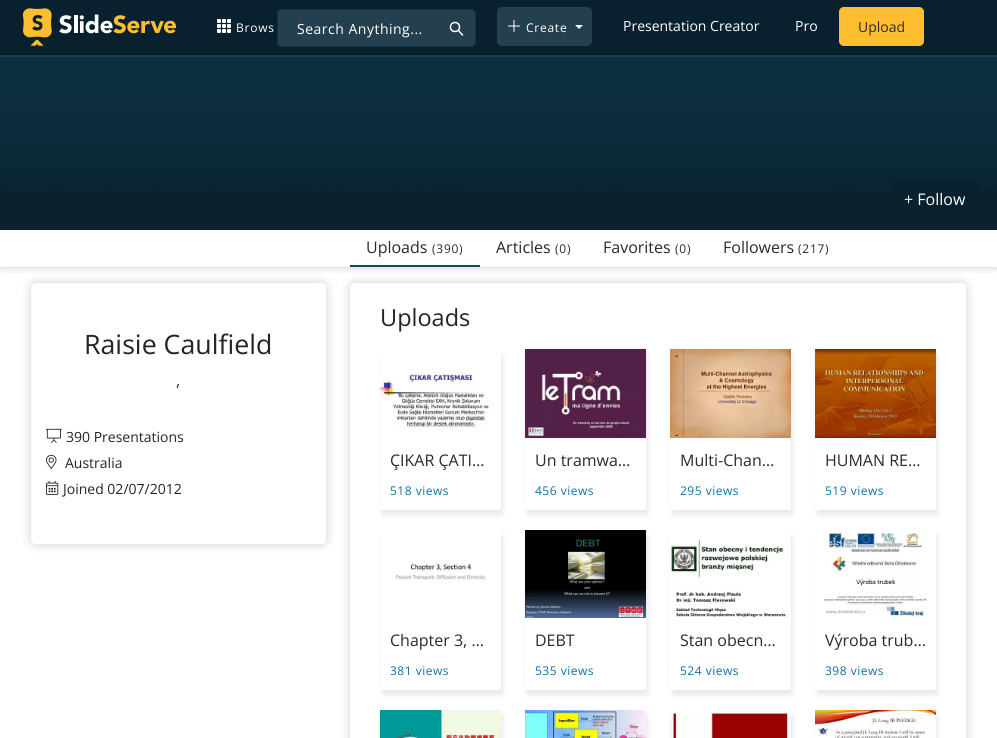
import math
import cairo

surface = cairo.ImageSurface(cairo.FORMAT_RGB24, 997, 738)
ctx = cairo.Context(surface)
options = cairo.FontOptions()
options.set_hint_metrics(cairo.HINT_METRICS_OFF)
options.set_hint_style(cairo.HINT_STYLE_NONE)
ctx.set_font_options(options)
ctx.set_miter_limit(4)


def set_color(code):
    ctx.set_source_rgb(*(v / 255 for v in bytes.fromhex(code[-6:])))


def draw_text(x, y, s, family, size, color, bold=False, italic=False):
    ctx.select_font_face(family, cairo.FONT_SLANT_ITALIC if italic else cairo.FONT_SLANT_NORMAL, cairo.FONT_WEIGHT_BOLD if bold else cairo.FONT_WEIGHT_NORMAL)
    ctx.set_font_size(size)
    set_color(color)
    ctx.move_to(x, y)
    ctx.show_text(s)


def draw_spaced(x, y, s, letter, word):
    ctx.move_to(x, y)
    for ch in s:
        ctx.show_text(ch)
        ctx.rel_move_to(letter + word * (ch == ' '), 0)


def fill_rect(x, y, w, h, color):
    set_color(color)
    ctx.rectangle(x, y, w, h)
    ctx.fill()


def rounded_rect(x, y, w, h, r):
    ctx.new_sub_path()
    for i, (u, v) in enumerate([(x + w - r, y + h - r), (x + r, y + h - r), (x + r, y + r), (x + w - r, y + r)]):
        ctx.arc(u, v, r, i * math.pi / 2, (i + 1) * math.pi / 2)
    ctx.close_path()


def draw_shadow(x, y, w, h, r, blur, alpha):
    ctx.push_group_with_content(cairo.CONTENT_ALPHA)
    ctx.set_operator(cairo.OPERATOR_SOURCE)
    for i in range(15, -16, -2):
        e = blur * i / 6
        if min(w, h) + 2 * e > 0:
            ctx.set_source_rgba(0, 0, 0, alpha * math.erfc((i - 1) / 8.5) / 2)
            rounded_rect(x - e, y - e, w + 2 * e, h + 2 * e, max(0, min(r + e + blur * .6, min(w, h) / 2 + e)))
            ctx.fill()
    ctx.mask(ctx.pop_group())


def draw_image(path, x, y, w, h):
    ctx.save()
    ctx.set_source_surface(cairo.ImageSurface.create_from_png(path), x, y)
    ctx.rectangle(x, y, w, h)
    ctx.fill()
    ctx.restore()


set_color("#ffffff")
ctx.paint()
fill_rect(0, 55, 997, 2, "#1e3d4e")
fill_rect(0, 0, 997, 54, "#09212e")
fill_rect(0, 54, 997, 1, "#061924")
draw_image("assets/img1.png", 22, 8, 155, 38)
draw_image("assets/img2.png", 217, 19, 14, 14)
ctx.select_font_face("Open Sans")
ctx.set_font_size(12)
set_color("#ffffff")
draw_spaced(236, 32, "Brows", 0.75, 0)
set_color("#243f4e")
rounded_rect(497.5, 7.5, 94, 38, 4.5)
ctx.fill_preserve()
ctx.set_line_width(1)
ctx.stroke()
draw_image("assets/img3.png", 508, 20, 12, 12)
set_color("#ffffff")
draw_spaced(526, 32, "Create", 0.75, 0)
ctx.new_path()
ctx.move_to(575, 25)
ctx.line_to(583, 25)
ctx.line_to(579, 29)
ctx.close_path()
ctx.fill()
draw_text(623, 31, "Presentation Creator", "Open Sans", 14, "#ffffff")
draw_text(795, 31, "Pro", "Open Sans", 14, "#ffffff")
set_color("#ffbe2f")
rounded_rect(839.5, 7.5, 84, 38, 4.5)
ctx.fill_preserve()
ctx.stroke()
draw_text(858, 32, "Upload", "Open Sans", 14, "#2b2a2a")
set_color("#243f4e")
rounded_rect(277, 9, 199, 38, 5)
ctx.fill()
ctx.arc(455, 27, 4.5, 0, 2 * math.pi)
set_color("#ffffff")
ctx.set_line_width(1.5)
ctx.stroke()
ctx.new_path()
ctx.move_to(462.5, 35)
ctx.line_to(458.5, 30.5)
ctx.set_line_cap(cairo.LINE_CAP_ROUND)
ctx.set_line_join(cairo.LINE_JOIN_ROUND)
ctx.stroke()
rounded_rect(277.5, 9.5, 198, 37, 4.5)
set_color("#152e40")
ctx.set_line_width(1)
ctx.set_line_cap(cairo.LINE_CAP_BUTT)
ctx.set_line_join(cairo.LINE_JOIN_MITER)
ctx.stroke()
set_color("#ffffff")
draw_spaced(297, 34, "Search Anything...", 0.5, 0)
ctx.save()
ctx.rectangle(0, 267, 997, 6)
ctx.clip()
set_color("#000000")
draw_shadow(0, 230, 997, 37, 0, 5, 0.2)
ctx.restore()
fill_rect(0, 191, 997, 39, "#0c202e")
draw_image("assets/img4.png", 0, 57, 997, 134)
set_color("#09212e")
rounded_rect(891, 180, 88, 38, 6)
ctx.fill()
draw_text(904, 205, "+ Follow", "Open Sans", 16, "#ffffff")
fill_rect(350, 265, 130, 2, "#15495f")
draw_text(366, 253, "Uploads", "Open Sans", 16, "#2b2a2a")
ctx.set_font_size(12)
draw_spaced(432, 253, "(390)", 0.75, 0)
draw_text(496, 253, "Articles", "Open Sans", 16, "#2b2a2a")
ctx.set_font_size(12)
draw_spaced(555, 253, "(0)", 0.75, 0)
draw_text(603, 253, "Favorites", "Open Sans", 16, "#2b2a2a")
ctx.set_font_size(12)
draw_spaced(675, 253, "(0)", 0.75, 0)
draw_text(723, 253, "Followers", "Open Sans", 16, "#2b2a2a")
ctx.set_font_size(12)
draw_spaced(798, 253, "(217)", 0.75, 0)
set_color("#000000")
draw_shadow(31, 283, 295, 261, 5, 5, 0.2)
set_color("#ffffff")
rounded_rect(31, 283, 295, 261, 5)
ctx.fill()
draw_text(84, 354, "Raisie Caulfield", "Open Sans", 26.75, "#212529")
draw_text(176, 386, ",", "Open Sans", 16, "#212529")
draw_image("assets/img5.png", 46, 428, 16, 15)
draw_text(66, 442, "390 Presentations", "Open Sans", 14, "#212529")
draw_image("assets/img6.png", 46, 454, 11, 15)
draw_text(65, 468, "Australia", "Open Sans", 14, "#212529")
draw_image("assets/img7.png", 46, 480, 13, 15)
draw_text(63, 494, "Joined 02/07/2012", "Open Sans", 14, "#212529")
set_color("#000000")
draw_shadow(350, 283, 616, 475, 5, 5, 0.2)
set_color("#ffffff")
rounded_rect(350, 283, 616, 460, 5)
ctx.fill()
draw_text(380, 326, "Uploads", "Open Sans", 23.5, "#212529")
set_color("#c7c7c7")
draw_shadow(382, 354, 121, 161, 2, 2.5, 0.4)
set_color("#ffffff")
rounded_rect(380, 349, 121, 161, 2)
ctx.fill()
draw_image("assets/img8.png", 380, 373, 109, 55)
draw_text(390, 466, "ÇIKAR ÇATI…", "Open Sans", 16, "#2b2a2a")
ctx.set_font_size(12)
set_color("#1271a5")
draw_spaced(390, 495, "518 views", 0.5, 0)
set_color("#c7c7c7")
draw_shadow(527, 354, 121, 161, 2, 2.5, 0.4)
set_color("#ffffff")
rounded_rect(525, 349, 121, 161, 2)
ctx.fill()
draw_image("assets/img9.png", 525, 349, 121, 89)
draw_text(535, 466, "Un tramwa…", "Open Sans", 16, "#2b2a2a")
ctx.set_font_size(12)
set_color("#1271a5")
draw_spaced(535, 495, "456 views", 0.5, 0)
set_color("#c7c7c7")
draw_shadow(672, 354, 121, 161, 2, 2.5, 0.4)
set_color("#ffffff")
rounded_rect(670, 349, 121, 161, 2)
ctx.fill()
draw_image("assets/img10.png", 670, 349, 121, 89)
draw_text(680, 466, "Multi-Chan…", "Open Sans", 16, "#2b2a2a")
ctx.set_font_size(12)
set_color("#1271a5")
draw_spaced(680, 495, "295 views", 0.5, 0)
set_color("#c7c7c7")
draw_shadow(817, 354, 121, 161, 2, 2.5, 0.4)
set_color("#ffffff")
rounded_rect(815, 349, 121, 161, 2)
ctx.fill()
draw_image("assets/img11.png", 815, 349, 121, 89)
draw_text(825, 466, "HUMAN RE…", "Open Sans", 16, "#2b2a2a")
ctx.set_font_size(12)
set_color("#1271a5")
draw_spaced(825, 495, "519 views", 0.5, 0)
set_color("#c7c7c7")
draw_shadow(382, 535, 121, 160, 2, 2.5, 0.4)
set_color("#ffffff")
rounded_rect(380, 530, 121, 160, 2)
ctx.fill()
draw_image("assets/img12.png", 395, 563, 91, 18)
draw_text(390, 646, "Chapter 3, …", "Open Sans", 16, "#2b2a2a")
ctx.set_font_size(12)
set_color("#1271a5")
draw_spaced(390, 675, "381 views", 0.5, 0)
set_color("#c7c7c7")
draw_shadow(527, 535, 121, 160, 2, 2.5, 0.4)
set_color("#ffffff")
rounded_rect(525, 530, 121, 160, 2)
ctx.fill()
draw_image("assets/img13.png", 525, 530, 121, 88)
draw_text(535, 646, "DEBT", "Open Sans", 16, "#2b2a2a")
ctx.set_font_size(12)
set_color("#1271a5")
draw_spaced(535, 675, "535 views", 0.5, 0)
set_color("#c7c7c7")
draw_shadow(672, 535, 121, 160, 2, 2.5, 0.4)
set_color("#ffffff")
rounded_rect(670, 530, 121, 160, 2)
ctx.fill()
draw_image("assets/img14.png", 670, 539, 118, 78)
draw_text(680, 646, "Stan obecn…", "Open Sans", 16, "#2b2a2a")
ctx.set_font_size(12)
set_color("#1271a5")
draw_spaced(680, 675, "524 views", 0.5, 0)
set_color("#c7c7c7")
draw_shadow(817, 535, 121, 160, 2, 2.5, 0.4)
set_color("#ffffff")
rounded_rect(815, 530, 121, 160, 2)
ctx.fill()
draw_image("assets/img15.png", 824, 530, 103, 88)
draw_text(825, 646, "Výroba trub…", "Open Sans", 16, "#2b2a2a")
ctx.set_font_size(12)
set_color("#1271a5")
draw_spaced(825, 675, "398 views", 0.5, 0)
set_color("#c7c7c7")
draw_shadow(382, 715, 121, 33, 2, 2.5, 0.4)
draw_image("assets/img16.png", 380, 710, 121, 28)
draw_shadow(527, 715, 121, 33, 2, 2.5, 0.4)
draw_image("assets/img17.png", 525, 710, 121, 28)
draw_shadow(672, 715, 121, 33, 2, 2.5, 0.4)
draw_image("assets/img18.png", 672, 711, 119, 27)
draw_shadow(817, 715, 121, 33, 2, 2.5, 0.4)
draw_image("assets/img19.png", 815, 710, 121, 28)
surface.write_to_png("output.png")
